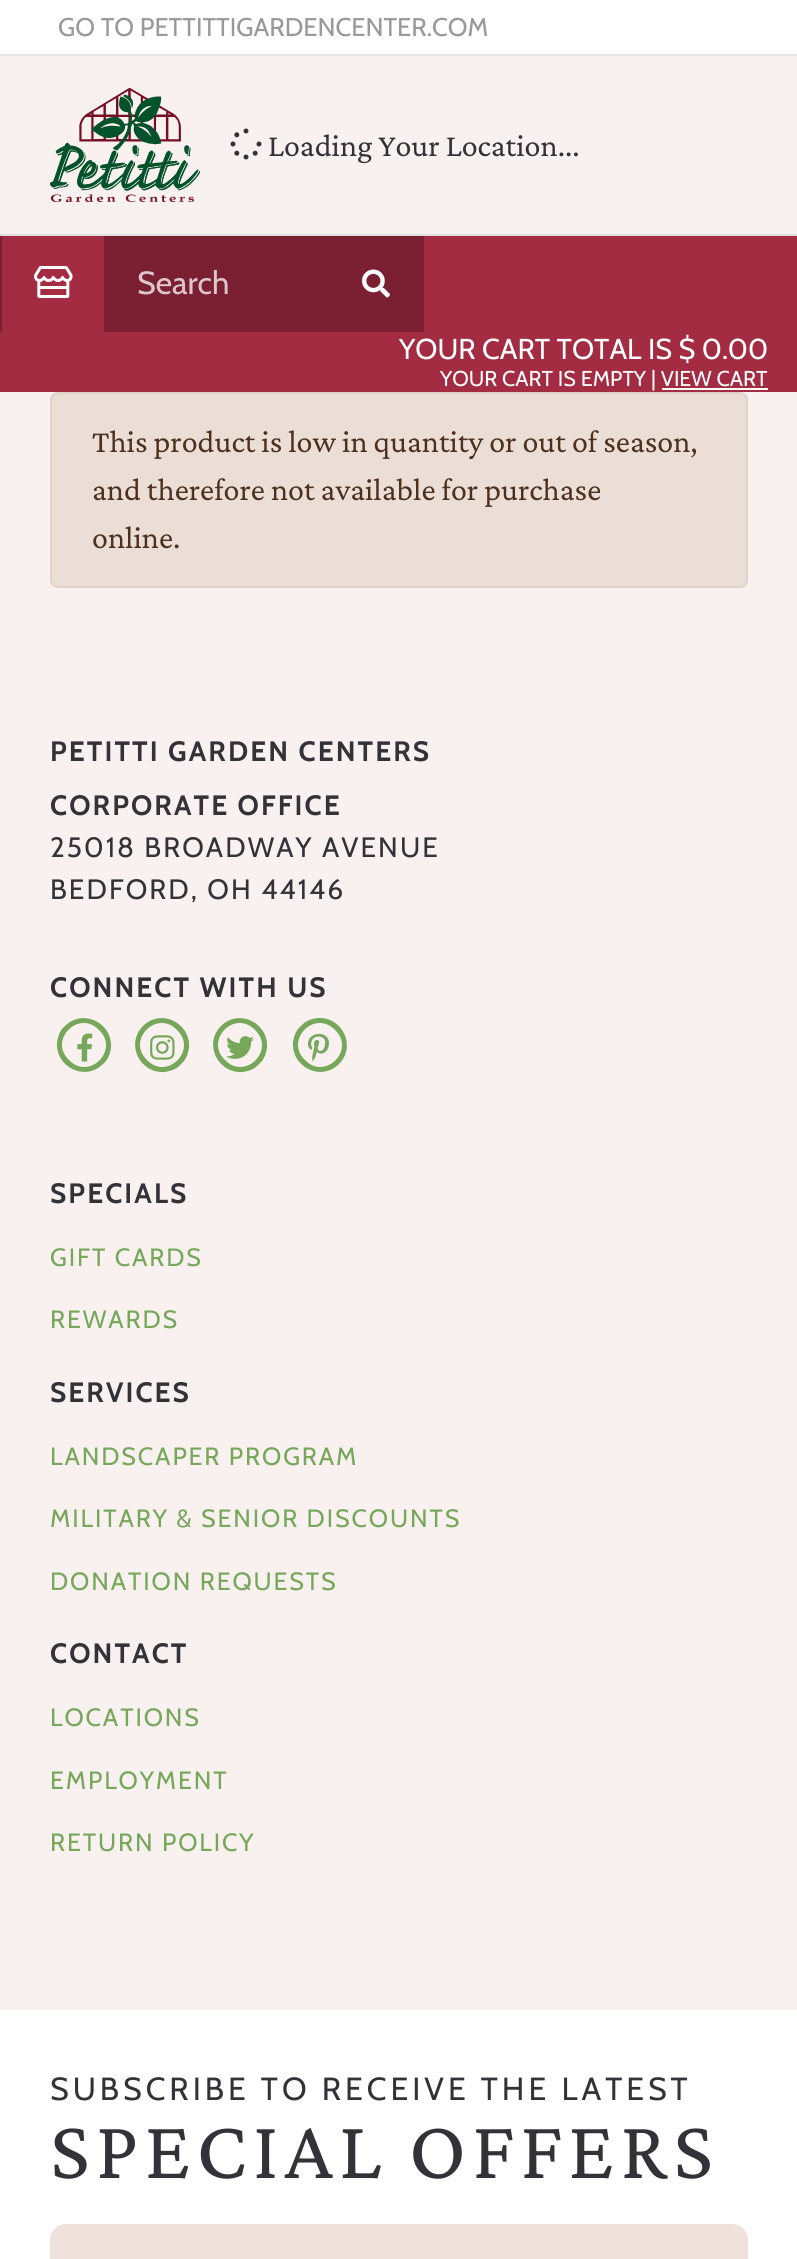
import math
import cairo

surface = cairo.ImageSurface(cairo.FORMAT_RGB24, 797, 2259)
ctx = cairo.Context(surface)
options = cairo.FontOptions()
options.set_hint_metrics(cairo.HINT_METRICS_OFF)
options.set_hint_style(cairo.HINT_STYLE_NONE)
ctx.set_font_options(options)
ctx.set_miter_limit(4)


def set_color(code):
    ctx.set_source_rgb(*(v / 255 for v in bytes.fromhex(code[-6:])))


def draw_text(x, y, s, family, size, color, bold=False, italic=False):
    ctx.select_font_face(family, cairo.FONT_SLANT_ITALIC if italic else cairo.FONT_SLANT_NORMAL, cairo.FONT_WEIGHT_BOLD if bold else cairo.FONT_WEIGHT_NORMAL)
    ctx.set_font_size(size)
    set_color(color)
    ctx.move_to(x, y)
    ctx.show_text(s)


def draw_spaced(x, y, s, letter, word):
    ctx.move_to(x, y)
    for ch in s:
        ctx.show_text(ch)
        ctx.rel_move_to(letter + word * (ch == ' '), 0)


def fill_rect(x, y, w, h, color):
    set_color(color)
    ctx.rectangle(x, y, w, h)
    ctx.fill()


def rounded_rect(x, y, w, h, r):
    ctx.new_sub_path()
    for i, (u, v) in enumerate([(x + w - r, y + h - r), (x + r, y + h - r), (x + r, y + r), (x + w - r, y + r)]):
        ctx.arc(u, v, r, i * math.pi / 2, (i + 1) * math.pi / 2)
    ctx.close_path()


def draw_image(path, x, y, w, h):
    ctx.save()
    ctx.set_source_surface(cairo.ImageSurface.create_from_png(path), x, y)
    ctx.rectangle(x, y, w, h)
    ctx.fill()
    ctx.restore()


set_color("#f8f1ef")
ctx.paint()
fill_rect(0, 0, 797, 54, "#ffffff")
fill_rect(0, 54, 797, 2, "#e6e6e6")
draw_text(58, 36, "GO TO PETTITTIGARDENCENTER.COM", "Cabin", 25.6, "#99999c")
fill_rect(0, 234, 797, 2, "#e1e0e1")
draw_image("assets/img1.png", 50, 88, 150, 114)
draw_image("assets/img2.png", 230, 128, 32, 32)
draw_text(268, 156, "Loading Your Location...", "Crimson Pro", 32, "#333239")
fill_rect(0, 236, 797, 156, "#a32b42")
fill_rect(104, 236, 320, 96, "#7a2032")
fill_rect(0, 236, 2, 96, "#7a2032")
draw_image("assets/img3.png", 34, 266, 39, 32)
draw_text(137, 294, "Search", "Cabin", 32, "#dec7cc")
draw_image("assets/img4.png", 362, 269, 28, 29)
draw_text(399, 359, "YOUR CART TOTAL IS $ 0.00", "Cabin", 28.75, "#ffffff")
draw_text(440, 386, "YOUR CART IS EMPTY", "Cabin", 21.5, "#ffffff")
draw_text(651, 386, "| VIEW CART", "Cabin", 21.5, "#ffffff")
fill_rect(662, 388, 106, 2, "#ffffff")
set_color("#eaded7")
rounded_rect(51, 393, 696, 194, 7)
ctx.fill_preserve()
set_color("#e1d1c7")
ctx.stroke()
draw_text(92, 452, "This product is low in quantity or out of season,", "Crimson Pro", 32, "#4e301d")
draw_text(92, 500, "and therefore not available for purchase", "Crimson Pro", 32, "#4e301d")
draw_text(92, 548, "online.", "Crimson Pro", 32, "#4e301d")
ctx.select_font_face("Cabin", cairo.FONT_SLANT_NORMAL, cairo.FONT_WEIGHT_BOLD)
ctx.set_font_size(28)
set_color("#333239")
draw_spaced(50, 761, "PETITTI GARDEN CENTERS", 2.1, 0)
draw_spaced(50, 815, "CORPORATE OFFICE", 2.1, 0)
ctx.select_font_face("Cabin")
draw_spaced(50, 857, "25018 BROADWAY AVENUE", 2.1, 0)
draw_spaced(50, 899, "BEDFORD, OH 44146", 2.1, 0)
ctx.select_font_face("Cabin", cairo.FONT_SLANT_NORMAL, cairo.FONT_WEIGHT_BOLD)
draw_spaced(50, 997, "CONNECT WITH US", 2.1, 0)
set_color("#77a75b")
ctx.new_path()
ctx.move_to(65, 1026)
ctx.curve_to(83, 1008, 113, 1023, 111, 1048)
ctx.curve_to(110, 1054, 108, 1060, 103, 1064)
ctx.curve_to(85, 1082, 55, 1067, 57, 1042)
ctx.curve_to(58, 1036, 60, 1030, 65, 1026)
ctx.close_path()
ctx.move_to(69, 1060)
ctx.curve_to(89, 1081, 120, 1050, 99, 1030)
ctx.curve_to(79, 1009, 48, 1040, 69, 1060)
ctx.close_path()
ctx.fill()
draw_image("assets/img5.png", 77, 1033, 16, 29)
ctx.new_path()
ctx.move_to(143, 1026)
ctx.curve_to(161, 1008, 191, 1023, 189, 1048)
ctx.curve_to(188, 1054, 186, 1060, 181, 1064)
ctx.curve_to(177, 1069, 171, 1071, 165, 1072)
ctx.curve_to(140, 1074, 125, 1044, 143, 1026)
ctx.close_path()
ctx.move_to(147, 1060)
ctx.curve_to(167, 1081, 198, 1050, 177, 1030)
ctx.curve_to(157, 1009, 126, 1040, 147, 1060)
ctx.close_path()
ctx.fill()
draw_image("assets/img6.png", 150, 1035, 25, 25)
ctx.new_path()
ctx.move_to(221, 1026)
ctx.curve_to(239, 1008, 269, 1023, 267, 1048)
ctx.curve_to(266, 1054, 264, 1060, 259, 1064)
ctx.curve_to(255, 1069, 249, 1071, 243, 1072)
ctx.curve_to(218, 1074, 203, 1044, 221, 1026)
ctx.close_path()
ctx.move_to(225, 1060)
ctx.curve_to(245, 1081, 276, 1050, 255, 1030)
ctx.curve_to(235, 1009, 204, 1040, 225, 1060)
ctx.close_path()
ctx.fill()
draw_image("assets/img7.png", 226, 1036, 28, 23)
ctx.new_path()
ctx.move_to(301, 1026)
ctx.curve_to(305, 1021, 311, 1019, 317, 1018)
ctx.curve_to(342, 1016, 357, 1046, 339, 1064)
ctx.curve_to(321, 1082, 291, 1067, 293, 1042)
ctx.curve_to(294, 1036, 296, 1030, 301, 1026)
ctx.close_path()
ctx.move_to(305, 1060)
ctx.curve_to(325, 1081, 356, 1050, 335, 1030)
ctx.curve_to(315, 1009, 284, 1040, 305, 1060)
ctx.close_path()
ctx.fill()
draw_image("assets/img8.png", 308, 1033, 21, 29)
set_color("#333239")
draw_spaced(50, 1203, "SPECIALS", 2.1, 0)
ctx.select_font_face("Cabin")
ctx.set_font_size(25)
set_color("#77a75b")
draw_spaced(50, 1266, "GIFT CARDS", 1.9, 0)
draw_spaced(50, 1328, "REWARDS", 1.9, 0)
ctx.select_font_face("Cabin", cairo.FONT_SLANT_NORMAL, cairo.FONT_WEIGHT_BOLD)
ctx.set_font_size(28)
set_color("#333239")
draw_spaced(50, 1402, "SERVICES", 2.1, 0)
ctx.select_font_face("Cabin")
ctx.set_font_size(25)
set_color("#77a75b")
draw_spaced(50, 1465, "LANDSCAPER PROGRAM", 1.9, 0)
draw_spaced(50, 1527, "MILITARY & SENIOR DISCOUNTS", 1.9, 0)
draw_spaced(50, 1590, "DONATION REQUESTS", 1.9, 0)
ctx.select_font_face("Cabin", cairo.FONT_SLANT_NORMAL, cairo.FONT_WEIGHT_BOLD)
ctx.set_font_size(28)
set_color("#333239")
draw_spaced(50, 1663, "CONTACT", 2.1, 0)
ctx.select_font_face("Cabin")
ctx.set_font_size(25)
set_color("#77a75b")
draw_spaced(50, 1726, "LOCATIONS", 1.9, 0)
draw_spaced(50, 1789, "EMPLOYMENT", 1.9, 0)
draw_spaced(50, 1851, "RETURN POLICY", 1.9, 0)
fill_rect(0, 2010, 797, 249, "#ffffff")
ctx.set_font_size(32)
set_color("#333239")
draw_spaced(50, 2100, "SUBSCRIBE TO RECEIVE THE LATEST", 4, 0)
ctx.select_font_face("Crimson Pro")
ctx.set_font_size(85)
draw_spaced(50, 2178, "SPECIAL OFFERS", 6, 0)
set_color("#f0e1dd")
rounded_rect(50, 2224, 698, 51, 16)
ctx.fill()
surface.write_to_png("output.png")
